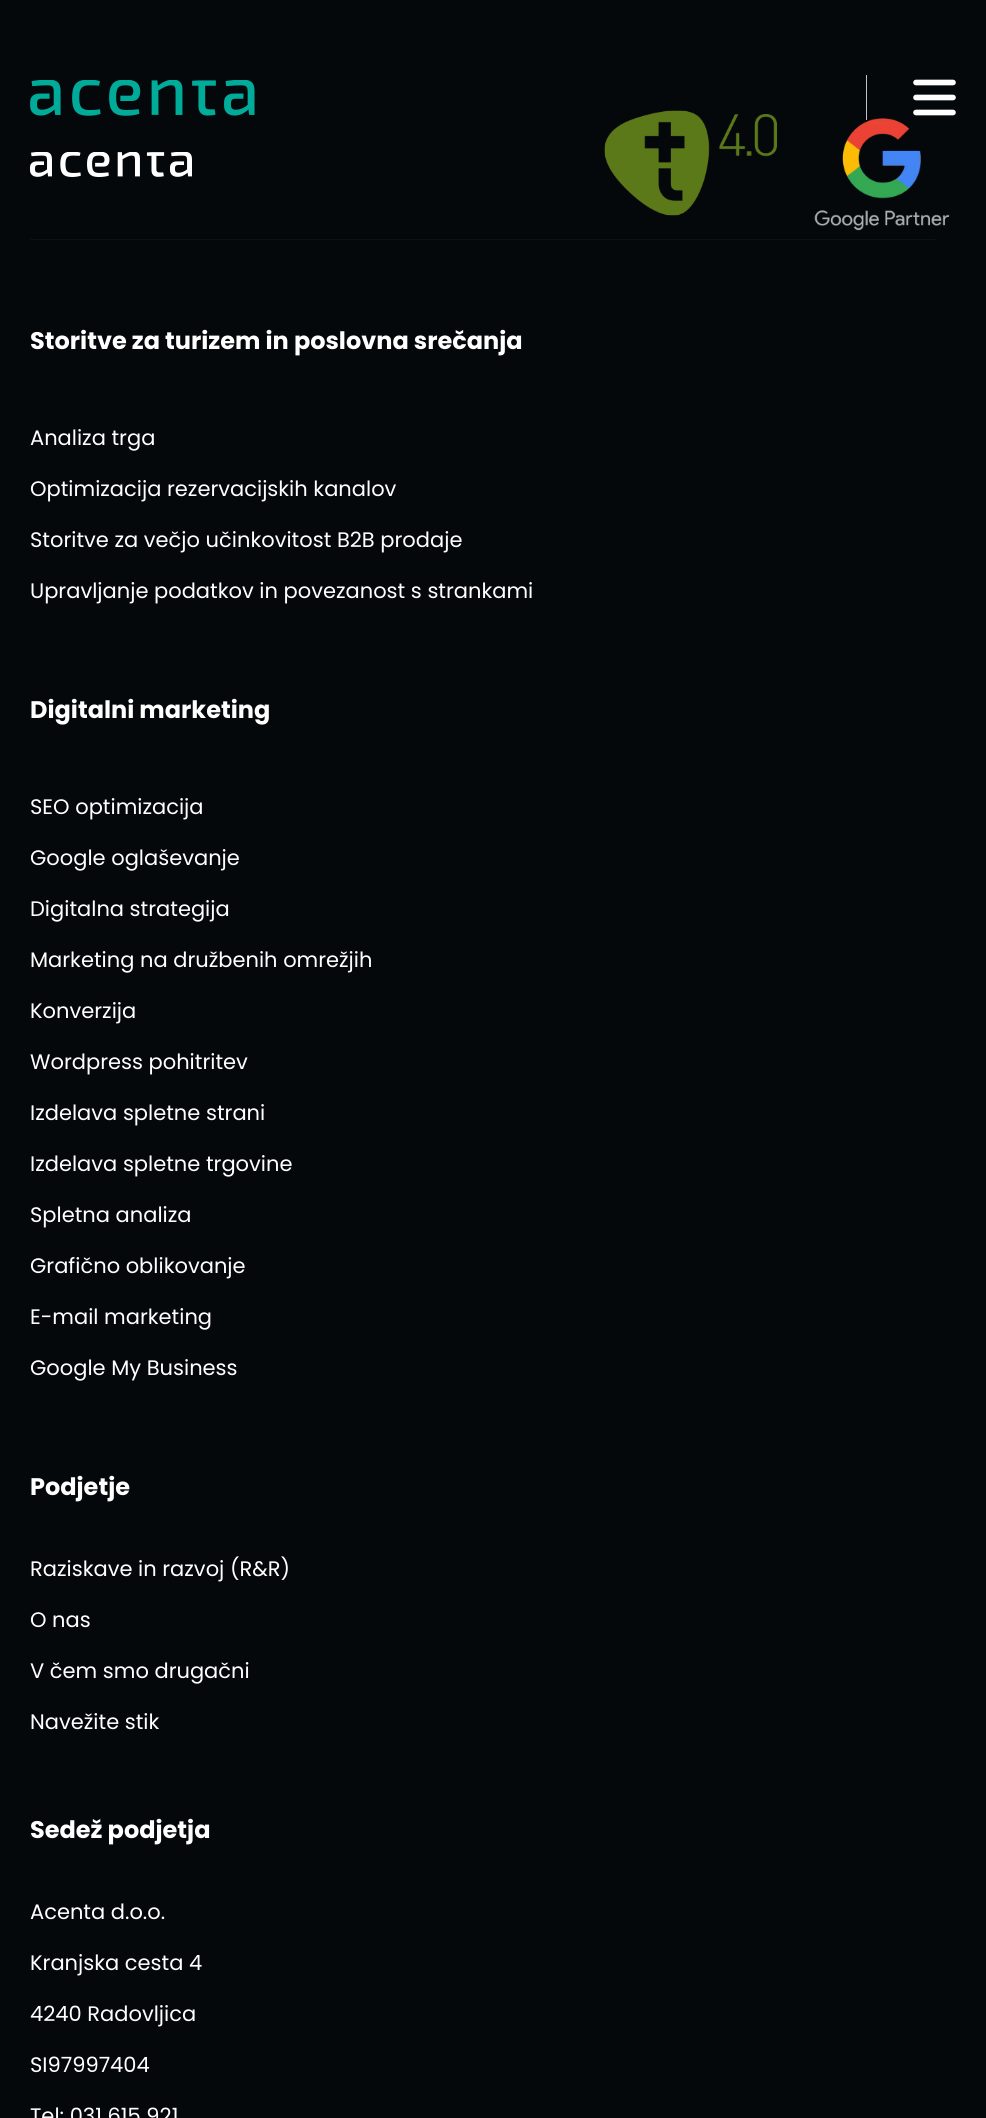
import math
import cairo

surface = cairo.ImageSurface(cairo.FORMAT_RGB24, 986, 2118)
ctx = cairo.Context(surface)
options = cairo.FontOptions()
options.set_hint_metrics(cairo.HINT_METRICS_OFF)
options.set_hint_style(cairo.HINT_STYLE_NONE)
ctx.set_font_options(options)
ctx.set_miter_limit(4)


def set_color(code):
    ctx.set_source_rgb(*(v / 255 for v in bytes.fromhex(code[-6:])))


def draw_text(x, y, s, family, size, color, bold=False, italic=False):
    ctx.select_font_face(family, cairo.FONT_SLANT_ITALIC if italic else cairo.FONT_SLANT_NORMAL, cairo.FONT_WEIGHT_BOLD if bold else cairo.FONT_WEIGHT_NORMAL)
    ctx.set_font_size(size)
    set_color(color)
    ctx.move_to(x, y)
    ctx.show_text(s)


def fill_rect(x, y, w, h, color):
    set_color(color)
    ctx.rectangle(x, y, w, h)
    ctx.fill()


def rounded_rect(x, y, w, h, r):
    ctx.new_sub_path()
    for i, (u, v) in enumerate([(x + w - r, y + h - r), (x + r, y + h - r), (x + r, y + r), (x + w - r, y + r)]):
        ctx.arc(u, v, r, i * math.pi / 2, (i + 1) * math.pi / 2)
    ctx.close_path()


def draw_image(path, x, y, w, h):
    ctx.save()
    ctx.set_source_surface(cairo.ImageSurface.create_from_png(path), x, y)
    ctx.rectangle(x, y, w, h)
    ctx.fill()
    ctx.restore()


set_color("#05080b")
ctx.paint()
draw_image("assets/img1.png", 30, 80, 225, 36)
draw_image("assets/img4.png", 814, 118, 136, 113)
fill_rect(866, 75, 1, 45, "#c1c1c2")
ctx.new_path()
ctx.move_to(916, 82.5)
ctx.line_to(953, 82.5)
ctx.move_to(916, 97.5)
ctx.line_to(953, 97.5)
ctx.move_to(916, 112.5)
ctx.line_to(953, 112.5)
set_color("#ffffff")
ctx.set_line_width(5.6)
ctx.set_line_cap(cairo.LINE_CAP_ROUND)
ctx.stroke()
draw_image("assets/img2.png", 30, 152, 162, 25)
draw_image("assets/img3.png", 604, 110, 173, 106)
ctx.save()
rounded_rect(30, 239, 906, 2, 1)
ctx.clip()
ctx.new_path()
ctx.move_to(936.5, 239)
ctx.line_to(30, 239)
set_color("#13202a")
ctx.set_line_width(0.8)
ctx.set_line_cap(cairo.LINE_CAP_BUTT)
ctx.stroke()
ctx.restore()
draw_text(30, 349, "Storitve za turizem in poslovna srečanja", "Poppins", 24, "#ffffff", bold=True)
draw_text(30, 445, "Analiza trga", "Poppins", 21, "#ffffff")
draw_text(30, 496, "Optimizacija rezervacijskih kanalov", "Poppins", 21, "#ffffff")
draw_text(30, 547, "Storitve za večjo učinkovitost B2B prodaje", "Poppins", 21, "#ffffff")
draw_text(30, 598, "Upravljanje podatkov in povezanost s strankami", "Poppins", 21, "#ffffff")
draw_text(30, 718, "Digitalni marketing", "Poppins", 24, "#ffffff", bold=True)
draw_text(30, 814, "SEO optimizacija", "Poppins", 21, "#ffffff")
draw_text(30, 865, "Google oglaševanje", "Poppins", 21, "#ffffff")
draw_text(30, 916, "Digitalna strategija", "Poppins", 21, "#ffffff")
draw_text(30, 967, "Marketing na družbenih omrežjih", "Poppins", 21, "#ffffff")
draw_text(30, 1018, "Konverzija", "Poppins", 21, "#ffffff")
draw_text(30, 1069, "Wordpress pohitritev", "Poppins", 21, "#ffffff")
draw_text(30, 1120, "Izdelava spletne strani", "Poppins", 21, "#ffffff")
draw_text(30, 1171, "Izdelava spletne trgovine", "Poppins", 21, "#ffffff")
draw_text(30, 1222, "Spletna analiza", "Poppins", 21, "#ffffff")
draw_text(30, 1273, "Grafično oblikovanje", "Poppins", 21, "#ffffff")
draw_text(30, 1324, "E-mail marketing", "Poppins", 21, "#ffffff")
draw_text(30, 1375, "Google My Business", "Poppins", 21, "#ffffff")
draw_text(30, 1495, "Podjetje", "Poppins", 24, "#ffffff", bold=True)
draw_text(30, 1576, "Raziskave in razvoj (R&R)", "Poppins", 21, "#ffffff")
draw_text(30, 1627, "O nas", "Poppins", 21, "#ffffff")
draw_text(30, 1678, "V čem smo drugačni", "Poppins", 21, "#ffffff")
draw_text(30, 1729, "Navežite stik", "Poppins", 21, "#ffffff")
draw_text(30, 1838, "Sedež podjetja", "Poppins", 24, "#ffffff", bold=True)
draw_text(30, 1919, "Acenta d.o.o.", "Poppins", 21, "#ffffff")
draw_text(30, 1970, "Kranjska cesta 4", "Poppins", 21, "#ffffff")
draw_text(30, 2021, "4240 Radovljica", "Poppins", 21, "#ffffff")
draw_text(30, 2072, "SI97997404", "Poppins", 21, "#ffffff")
draw_text(30, 2123, "Tel: 031 615 921", "Poppins", 21, "#ffffff")
surface.write_to_png("output.png")
